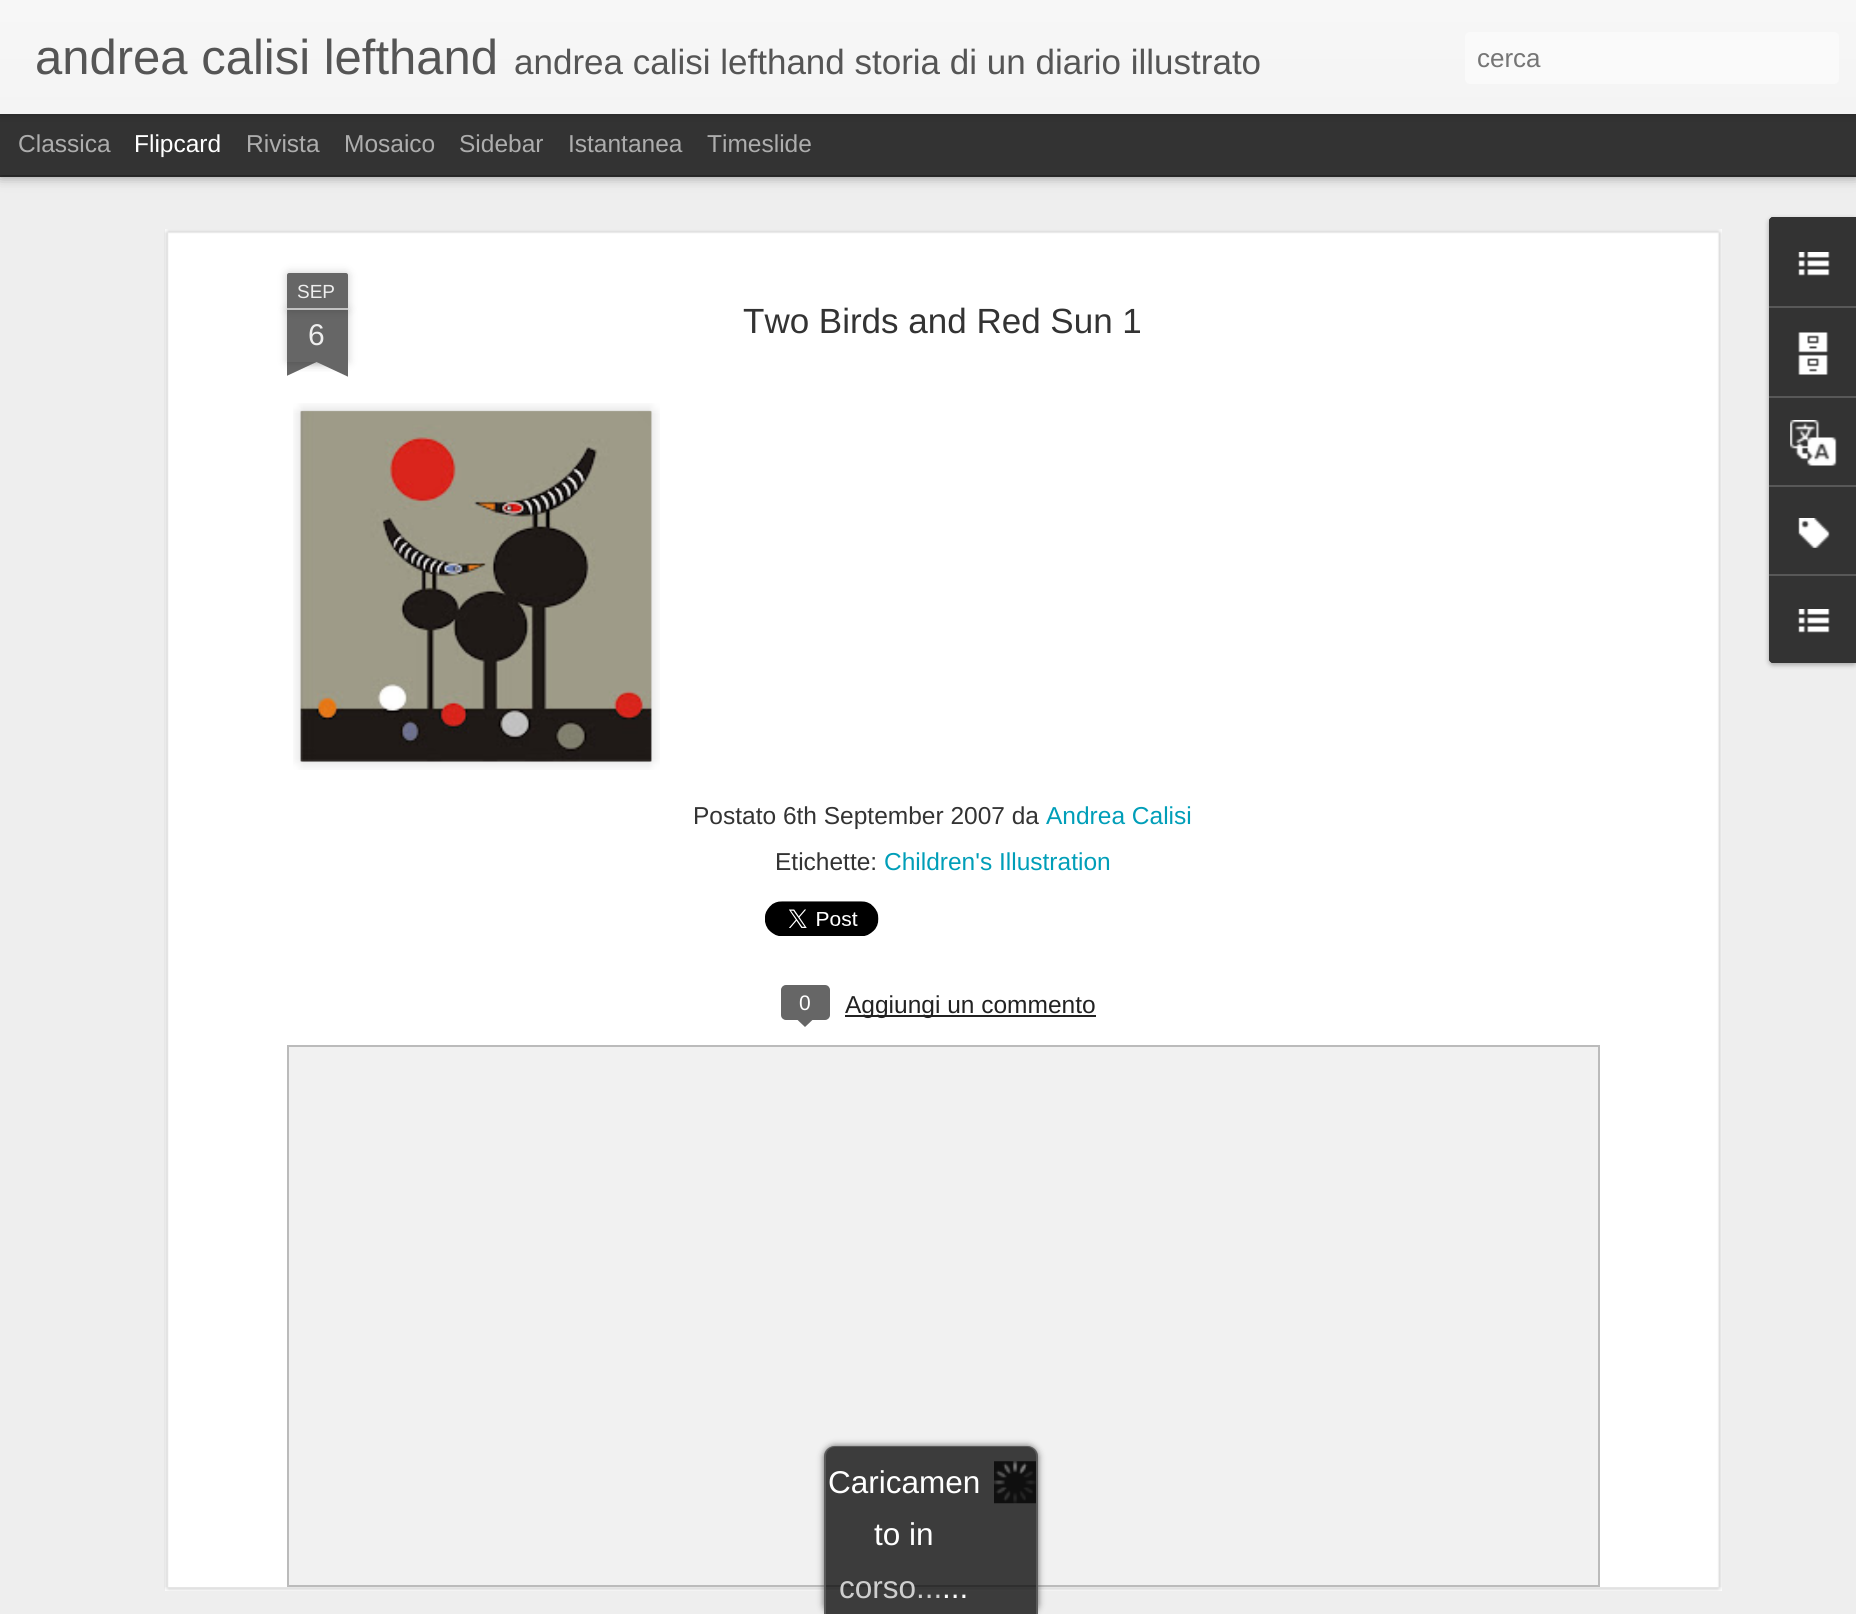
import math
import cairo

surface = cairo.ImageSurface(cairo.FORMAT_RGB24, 1856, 1614)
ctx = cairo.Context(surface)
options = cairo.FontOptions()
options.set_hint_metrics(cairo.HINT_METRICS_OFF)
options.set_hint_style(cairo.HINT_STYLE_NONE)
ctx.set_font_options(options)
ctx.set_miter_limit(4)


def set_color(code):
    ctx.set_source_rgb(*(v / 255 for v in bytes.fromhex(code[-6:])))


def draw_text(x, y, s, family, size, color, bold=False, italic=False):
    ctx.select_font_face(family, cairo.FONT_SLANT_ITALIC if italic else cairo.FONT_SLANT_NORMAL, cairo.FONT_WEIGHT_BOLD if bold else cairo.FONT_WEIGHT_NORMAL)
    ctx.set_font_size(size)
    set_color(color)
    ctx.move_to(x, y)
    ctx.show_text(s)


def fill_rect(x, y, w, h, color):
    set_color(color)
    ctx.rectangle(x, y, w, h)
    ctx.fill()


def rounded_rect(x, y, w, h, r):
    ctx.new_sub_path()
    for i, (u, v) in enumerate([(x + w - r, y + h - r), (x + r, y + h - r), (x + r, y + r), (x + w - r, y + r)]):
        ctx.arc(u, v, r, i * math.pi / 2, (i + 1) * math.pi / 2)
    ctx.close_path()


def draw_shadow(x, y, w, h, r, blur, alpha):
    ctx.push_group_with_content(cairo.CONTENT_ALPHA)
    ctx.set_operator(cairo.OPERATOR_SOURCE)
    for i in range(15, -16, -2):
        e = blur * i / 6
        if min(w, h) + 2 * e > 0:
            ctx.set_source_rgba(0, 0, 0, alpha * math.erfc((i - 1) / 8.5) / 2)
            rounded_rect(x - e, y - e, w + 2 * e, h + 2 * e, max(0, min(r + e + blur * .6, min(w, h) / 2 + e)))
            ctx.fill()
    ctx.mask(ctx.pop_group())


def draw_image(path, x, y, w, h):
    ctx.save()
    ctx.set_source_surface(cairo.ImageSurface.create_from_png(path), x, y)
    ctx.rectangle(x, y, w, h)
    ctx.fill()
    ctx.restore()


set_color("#333333")
ctx.paint()
fill_rect(0, 177, 1856, 1437, "#eeeeee")
set_color("#000000")
draw_shadow(0, 114, 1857, 61, 0, 7, 0.5)
fill_rect(0, 114, 1856, 61, "#333333")
set_color("#000000")
draw_shadow(0, 0, 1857, 114, 0, 4.5, 0.3)
gradient = cairo.LinearGradient(0, 0, 0, 114)
gradient.add_color_stop_rgba(0, 0.969, 0.969, 0.969, 1)
gradient.add_color_stop_rgba(1, 0.957, 0.957, 0.957, 1)
ctx.set_source(gradient)
ctx.rectangle(0, 0, 1856, 114)
ctx.fill()
draw_text(35, 74, "andrea calisi lefthand", "Liberation Sans", 49, "#555555")
draw_text(514, 74, "andrea calisi lefthand storia di un diario illustrato", "Liberation Sans", 35, "#555555")
set_color("#fafafa")
rounded_rect(1465, 32, 374, 52, 5)
ctx.fill()
draw_text(1477, 67, "cerca", "Liberation Sans", 26, "#757575")
draw_text(18, 152, "Classica", "Liberation Sans", 24.5, "#adadad")
draw_text(134, 152, "Flipcard", "Liberation Sans", 24.5, "#ffffff")
draw_text(246, 152, "Rivista", "Liberation Sans", 24.5, "#adadad")
draw_text(344, 152, "Mosaico", "Liberation Sans", 24.5, "#adadad")
draw_text(459, 152, "Sidebar", "Liberation Sans", 24.5, "#adadad")
draw_text(568, 152, "Istantanea", "Liberation Sans", 24.5, "#adadad")
draw_text(707, 152, "Timeslide", "Liberation Sans", 24.5, "#adadad")
fill_rect(165, 229, 1557, 1362, "#ffffff")
draw_image("assets/img1.png", 164, 229, 1558, 1362)
set_color("#000000")
draw_shadow(287, 310, 61, 52, 0, 4.5, 0.2)
fill_rect(287, 310, 61, 52, "#666666")
set_color("#000000")
draw_shadow(287, 273, 61, 37, 2, 4.5, 0.2)
set_color("#666666")
ctx.new_path()
ctx.move_to(289, 273)
ctx.line_to(346, 273)
ctx.curve_to(347, 273, 348, 274, 348, 275)
ctx.line_to(348, 310)
ctx.line_to(287, 310)
ctx.line_to(287, 275)
ctx.curve_to(287, 274, 288, 273, 289, 273)
ctx.close_path()
ctx.fill()
fill_rect(287, 308, 61, 2, "#c2c2c2")
draw_text(297, 298, "SEP", "Liberation Sans", 19, "#eeeeee")
draw_text(308, 345, "6", "Liberation Sans", 30, "#eeeeee")
ctx.save()
ctx.rectangle(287, 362, 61, 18)
ctx.clip()
set_color("#000000")
draw_shadow(271, 345, 88, 17, 0, 4.5, 0.2)
ctx.restore()
ctx.save()
ctx.rectangle(287, 362, 61, 18)
ctx.clip()
set_color("#666666")
ctx.new_path()
ctx.move_to(271, 364)
ctx.line_to(350, 327)
ctx.line_to(357, 343)
ctx.line_to(278, 380)
ctx.close_path()
ctx.fill()
ctx.restore()
ctx.save()
ctx.rectangle(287, 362, 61, 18)
ctx.clip()
set_color("#000000")
draw_shadow(277, 345, 87, 17, 0, 4.5, 0.2)
ctx.restore()
ctx.save()
ctx.rectangle(287, 362, 61, 18)
ctx.clip()
set_color("#666666")
ctx.new_path()
ctx.move_to(283, 327)
ctx.line_to(363, 364)
ctx.line_to(355, 380)
ctx.line_to(276, 343)
ctx.close_path()
ctx.fill()
ctx.restore()
draw_text(743, 333, "Two Birds and Red Sun 1", "Liberation Sans", 35, "#333333")
draw_image("assets/img2.png", 293, 403, 367, 367)
draw_image("assets/img3.png", 300, 410, 352, 352)
draw_text(693, 824, "Postato 6th September 2007 da", "Liberation Sans", 24.5, "#333333")
draw_text(1046, 824, "Andrea Calisi", "Liberation Sans", 24.5, "#009eb8")
draw_text(775, 870, "Etichette:", "Liberation Sans", 24.5, "#333333")
draw_text(884, 870, "Children's Illustration", "Liberation Sans", 24.5, "#009eb8")
draw_image("assets/img4.png", 765, 901, 114, 35)
set_color("#666666")
rounded_rect(782, 986, 47, 33, 4)
ctx.fill_preserve()
ctx.stroke()
draw_text(799, 1010, "0", "Liberation Sans", 21, "#ffffff")
set_color("#666666")
ctx.new_path()
ctx.move_to(796, 1018.5)
ctx.line_to(814, 1018.5)
ctx.line_to(805, 1027)
ctx.close_path()
ctx.fill()
fill_rect(845, 1015, 251, 2, "#222222")
draw_text(845, 1013, "Aggiungi un commento", "Liberation Sans", 24.5, "#222222")
set_color("#f1f1f1")
ctx.rectangle(288, 1046, 1311, 540)
ctx.fill_preserve()
set_color("#bbbbbb")
ctx.stroke()
set_color("#000000")
draw_shadow(1769, 219, 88, 446, 4, 2.5, 0.3)
set_color("#333333")
ctx.new_path()
ctx.move_to(1773, 217)
ctx.line_to(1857, 217)
ctx.line_to(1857, 663)
ctx.line_to(1773, 663)
ctx.curve_to(1771, 663, 1769, 661, 1769, 659)
ctx.line_to(1769, 221)
ctx.curve_to(1769, 219, 1771, 217, 1773, 217)
ctx.close_path()
ctx.fill()
ctx.new_path()
ctx.move_to(1773, 217)
ctx.line_to(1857, 217)
ctx.line_to(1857, 306)
ctx.line_to(1769, 306)
ctx.line_to(1769, 221)
ctx.curve_to(1769, 219, 1771, 217, 1773, 217)
ctx.close_path()
ctx.fill()
draw_image("assets/img5.png", 1798, 252, 32, 24)
fill_rect(1769, 306, 87, 2, "#585858")
draw_image("assets/img6.png", 1798, 332, 31, 43)
fill_rect(1769, 396, 87, 2, "#585858")
draw_image("assets/img7.png", 1790, 420, 47, 46)
fill_rect(1769, 485, 87, 2, "#585858")
draw_image("assets/img8.png", 1798, 518, 32, 30)
set_color("#333333")
ctx.new_path()
ctx.move_to(1769, 574)
ctx.line_to(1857, 574)
ctx.line_to(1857, 663)
ctx.line_to(1773, 663)
ctx.curve_to(1771, 663, 1769, 661, 1769, 659)
ctx.close_path()
ctx.fill()
fill_rect(1769, 574, 87, 2, "#585858")
draw_image("assets/img5.png", 1798, 609, 32, 24)
ctx.save()
ctx.set_fill_rule(cairo.FILL_RULE_EVEN_ODD)
ctx.new_path()
ctx.move_to(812, 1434)
ctx.line_to(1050, 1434)
ctx.line_to(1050, 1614)
ctx.line_to(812, 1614)
ctx.close_path()
ctx.move_to(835, 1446)
ctx.line_to(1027, 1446)
ctx.curve_to(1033, 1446, 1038, 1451, 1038, 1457)
ctx.line_to(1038, 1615)
ctx.line_to(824, 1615)
ctx.line_to(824, 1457)
ctx.curve_to(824, 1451, 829, 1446, 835, 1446)
ctx.close_path()
ctx.clip()
set_color("#333333")
draw_shadow(824, 1446, 214, 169, 11, 3.5, 0.75)
ctx.restore()
ctx.set_source_rgba(0, 0, 0, 0.75)
ctx.new_path()
ctx.move_to(835, 1446)
ctx.line_to(1027, 1446)
ctx.curve_to(1033, 1446, 1038, 1451, 1038, 1457)
ctx.line_to(1038, 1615)
ctx.line_to(824, 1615)
ctx.line_to(824, 1457)
ctx.curve_to(824, 1451, 829, 1446, 835, 1446)
ctx.close_path()
ctx.fill()
ctx.set_source_rgba(0.4, 0.4, 0.4, 0.75)
ctx.set_fill_rule(cairo.FILL_RULE_EVEN_ODD)
ctx.new_path()
ctx.move_to(835, 1446)
ctx.line_to(1027, 1446)
ctx.curve_to(1033, 1446, 1038, 1450, 1038, 1456)
ctx.line_to(1038, 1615)
ctx.line_to(824, 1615)
ctx.line_to(824, 1456)
ctx.curve_to(824, 1450, 829, 1446, 835, 1446)
ctx.close_path()
ctx.move_to(835, 1447)
ctx.line_to(1027, 1447)
ctx.curve_to(1032, 1447, 1036, 1451, 1036, 1456)
ctx.line_to(1036, 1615)
ctx.line_to(826, 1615)
ctx.line_to(826, 1456)
ctx.curve_to(826, 1451, 830, 1447, 835, 1447)
ctx.close_path()
ctx.fill()
draw_image("assets/img9.png", 994, 1461, 42, 43)
draw_text(828, 1493, "Caricamen", "Liberation Sans", 31.5, "#ffffff")
draw_text(874, 1545, "to in", "Liberation Sans", 31.5, "#ffffff")
draw_text(839, 1598, "corso...", "Liberation Sans", 31.5, "#cecece")
draw_text(942, 1598, "...", "Liberation Sans", 31.5, "#ffffff")
surface.write_to_png("output.png")
